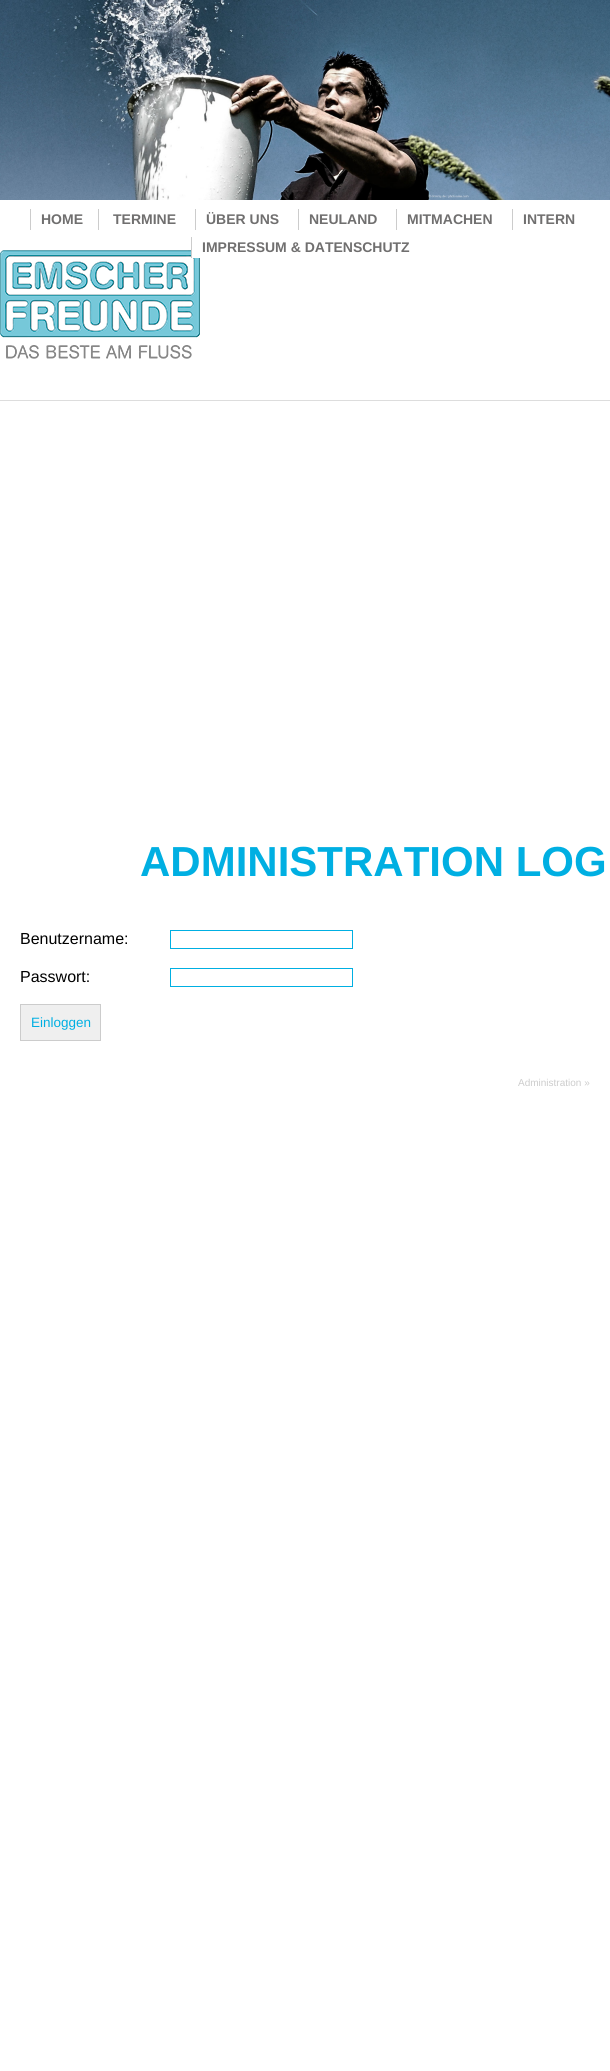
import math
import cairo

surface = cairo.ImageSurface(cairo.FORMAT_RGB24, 610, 2071)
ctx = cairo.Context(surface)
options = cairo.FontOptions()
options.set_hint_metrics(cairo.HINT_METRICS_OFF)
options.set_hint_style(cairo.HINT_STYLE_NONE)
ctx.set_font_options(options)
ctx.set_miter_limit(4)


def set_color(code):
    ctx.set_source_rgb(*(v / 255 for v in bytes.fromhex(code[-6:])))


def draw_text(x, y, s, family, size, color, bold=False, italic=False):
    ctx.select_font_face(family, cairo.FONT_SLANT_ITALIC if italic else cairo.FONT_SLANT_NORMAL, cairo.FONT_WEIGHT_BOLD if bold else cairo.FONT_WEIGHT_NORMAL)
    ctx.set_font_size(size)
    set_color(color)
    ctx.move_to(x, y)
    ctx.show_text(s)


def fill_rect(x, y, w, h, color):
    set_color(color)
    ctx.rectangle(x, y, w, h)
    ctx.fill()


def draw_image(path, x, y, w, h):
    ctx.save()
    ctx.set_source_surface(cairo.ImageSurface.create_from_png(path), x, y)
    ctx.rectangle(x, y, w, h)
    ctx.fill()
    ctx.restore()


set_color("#ffffff")
ctx.paint()
draw_image("assets/img1.png", 0, 0, 610, 200)
draw_image("assets/img2.png", 0, 250, 200, 109)
fill_rect(0, 400, 610, 1, "#dddddd")
draw_text(41, 224, "HOME", "Liberation Sans", 14, "#706f6f", bold=True)
fill_rect(30, 209, 1, 21, "#cccccc")
draw_text(113, 224, "TERMINE", "Liberation Sans", 14, "#706f6f", bold=True)
fill_rect(98, 209, 1, 21, "#cccccc")
draw_text(206, 224, "ÜBER UNS", "Liberation Sans", 14, "#706f6f", bold=True)
fill_rect(195, 209, 1, 21, "#cccccc")
draw_text(309, 224, "NEULAND", "Liberation Sans", 14, "#706f6f", bold=True)
fill_rect(298, 209, 1, 21, "#cccccc")
draw_text(407, 224, "MITMACHEN", "Liberation Sans", 14, "#706f6f", bold=True)
fill_rect(396, 209, 1, 21, "#cccccc")
draw_text(523, 224, "INTERN", "Liberation Sans", 14, "#706f6f", bold=True)
fill_rect(512, 209, 1, 21, "#cccccc")
draw_text(202, 252, "IMPRESSUM & DATENSCHUTZ", "Liberation Sans", 14, "#706f6f", bold=True)
fill_rect(192, 250, 8, 8, "#ffffff")
fill_rect(191, 237, 1, 21, "#cccccc")
draw_text(140, 876, "ADMINISTRATION LOG", "Liberation Sans", 42, "#00afe2", bold=True)
draw_text(20, 944, "Benutzername:", "Liberation Sans", 16, "#000000")
ctx.rectangle(170.5, 930.5, 182, 18)
set_color("#00afe2")
ctx.set_line_width(1)
ctx.stroke()
draw_text(20, 982, "Passwort:", "Liberation Sans", 16, "#000000")
ctx.rectangle(170.5, 968.5, 182, 18)
set_color("#00afe2")
ctx.stroke()
set_color("#efefef")
ctx.rectangle(20.5, 1004.5, 80, 36)
ctx.fill_preserve()
set_color("#cccccc")
ctx.stroke()
draw_text(31, 1027, "Einloggen", "Liberation Sans", 13.5, "#00afe2")
draw_text(518, 1086, "Administration »", "Liberation Sans", 10, "#cccccc")
surface.write_to_png("output.png")
